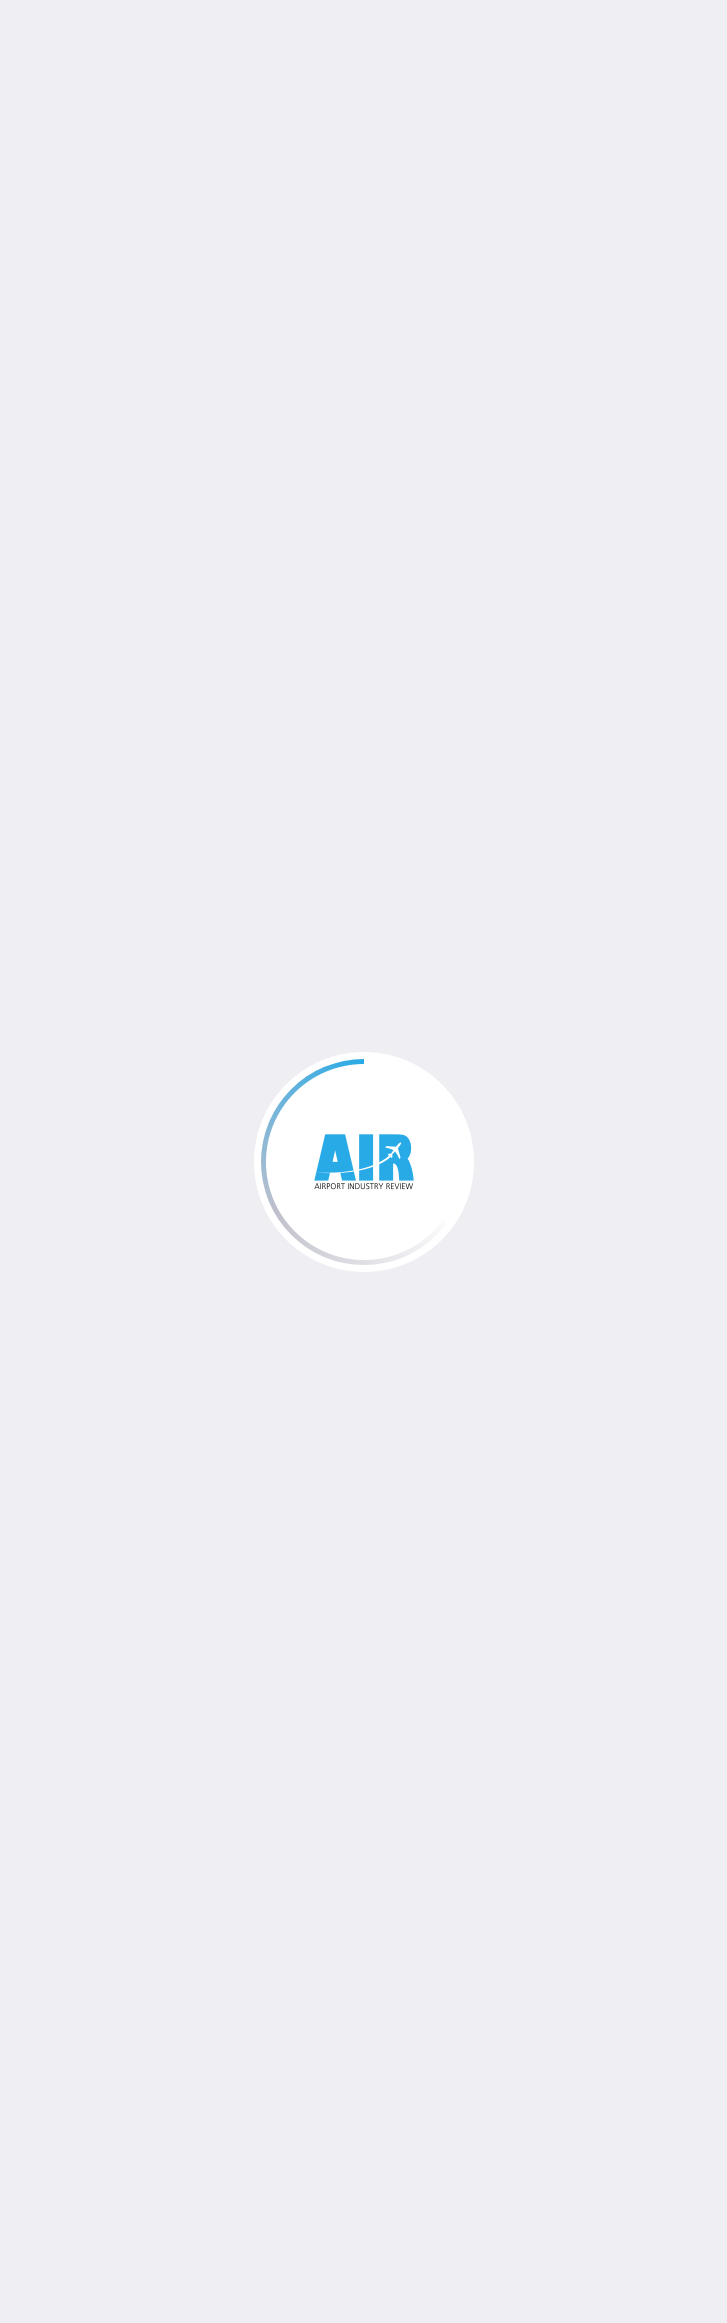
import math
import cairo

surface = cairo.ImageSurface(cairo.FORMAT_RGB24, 727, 2323)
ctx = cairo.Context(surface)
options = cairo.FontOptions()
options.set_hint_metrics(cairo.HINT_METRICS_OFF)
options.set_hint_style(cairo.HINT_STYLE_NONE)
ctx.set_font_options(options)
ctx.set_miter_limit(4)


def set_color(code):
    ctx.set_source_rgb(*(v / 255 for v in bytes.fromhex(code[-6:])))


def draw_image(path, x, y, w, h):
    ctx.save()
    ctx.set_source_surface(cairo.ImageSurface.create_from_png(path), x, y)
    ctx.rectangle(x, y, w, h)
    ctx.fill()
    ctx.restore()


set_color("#eeeef3")
ctx.paint()
set_color("#ffffff")
ctx.arc(364, 1162, 110, 0, 2 * math.pi)
ctx.fill()
draw_image("assets/img1.png", 261, 1059, 184, 206)
ctx.arc(364, 1162, 98, 0, 2 * math.pi)
ctx.fill()
draw_image("assets/img2.png", 314, 1134, 100, 56)
surface.write_to_png("output.png")
